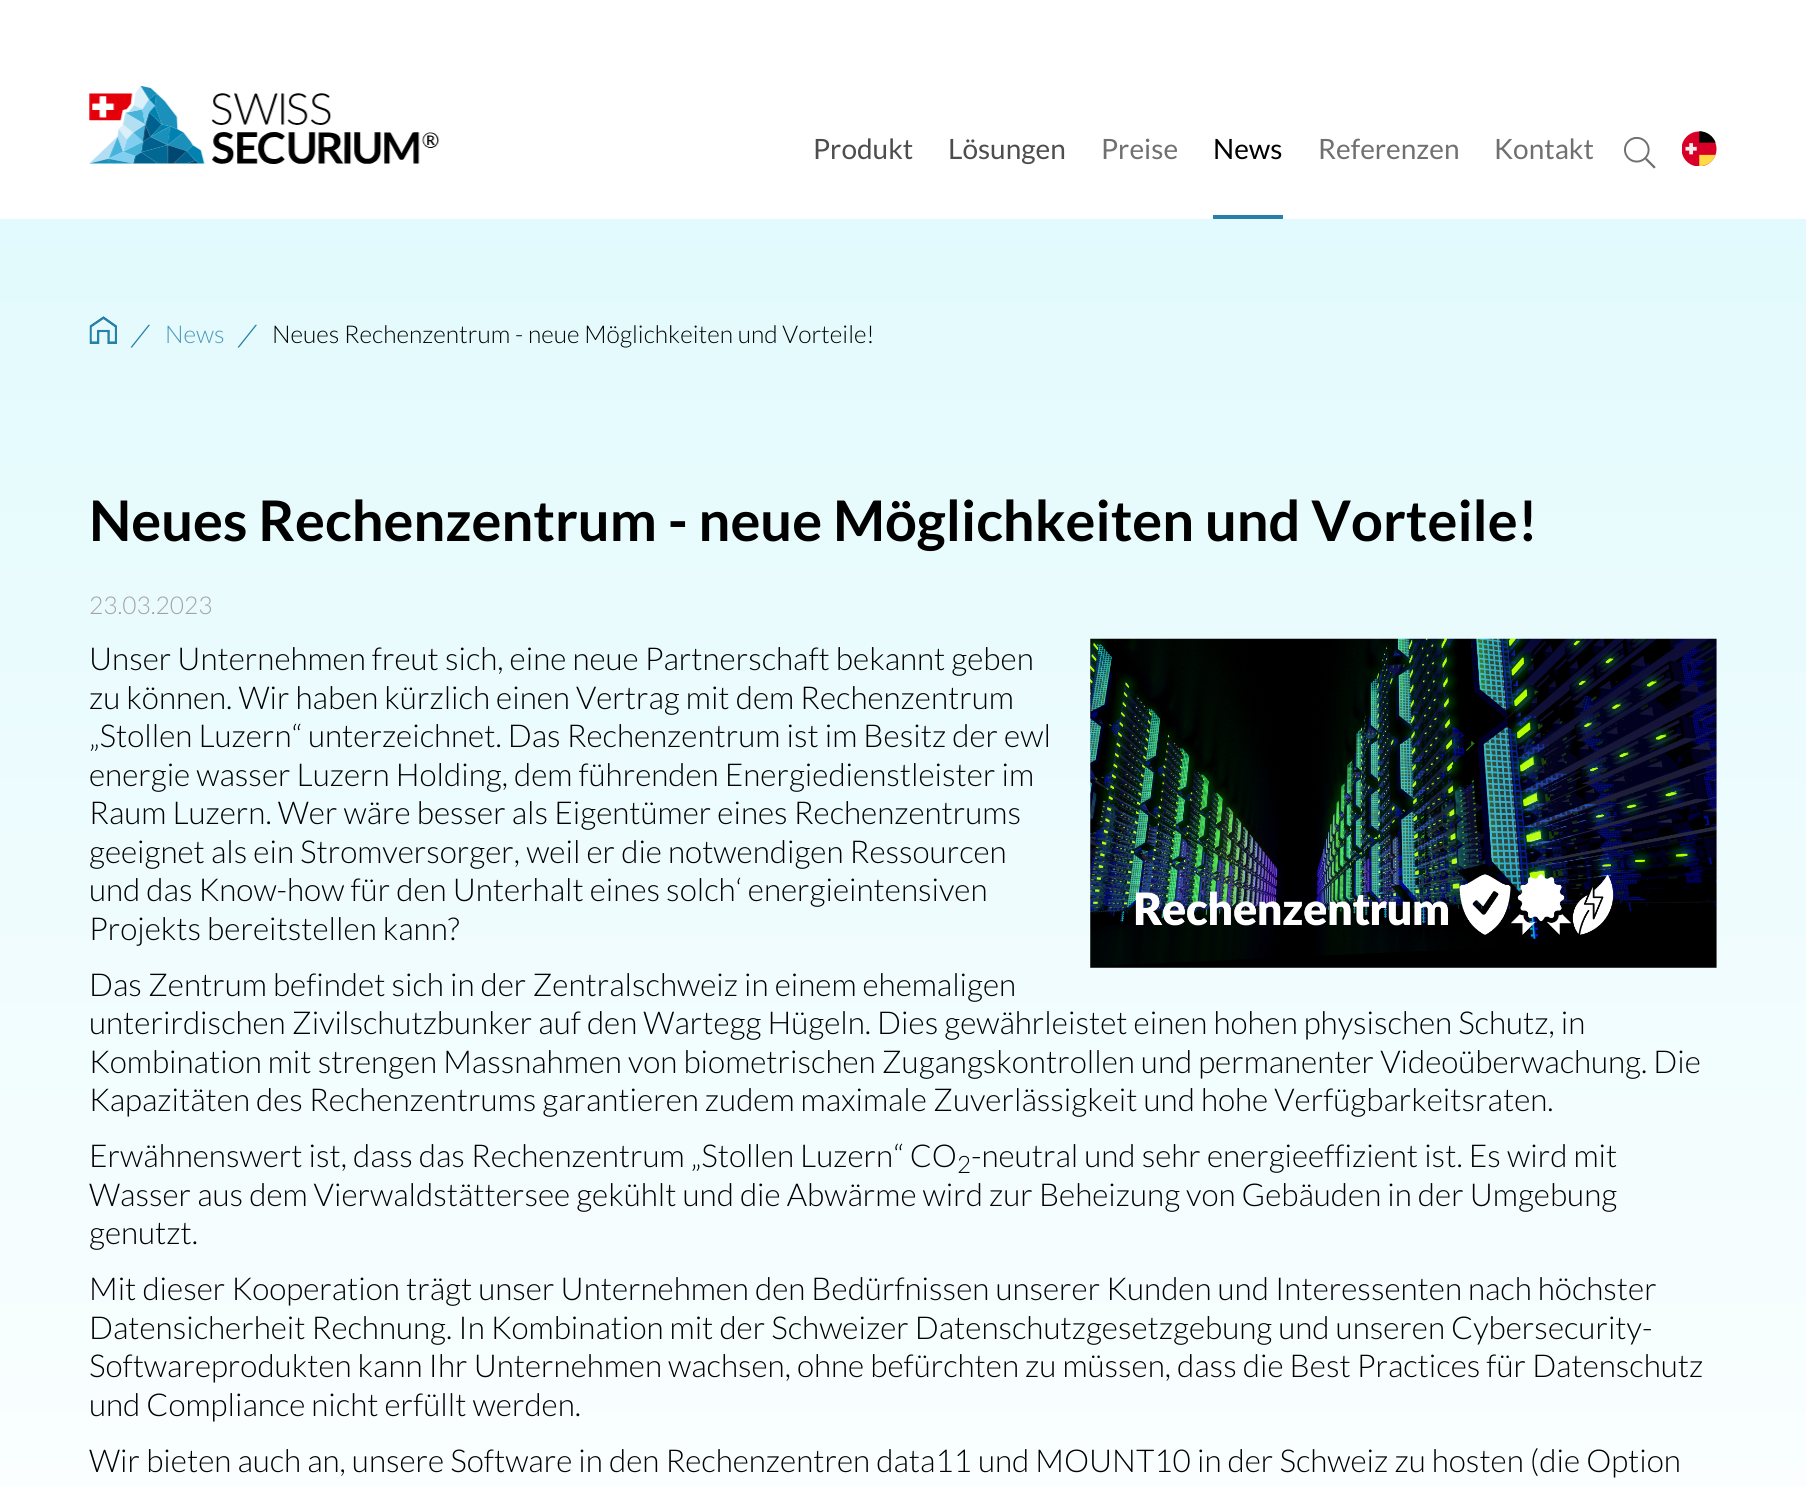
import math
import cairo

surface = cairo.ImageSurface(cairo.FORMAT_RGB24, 1806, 1486)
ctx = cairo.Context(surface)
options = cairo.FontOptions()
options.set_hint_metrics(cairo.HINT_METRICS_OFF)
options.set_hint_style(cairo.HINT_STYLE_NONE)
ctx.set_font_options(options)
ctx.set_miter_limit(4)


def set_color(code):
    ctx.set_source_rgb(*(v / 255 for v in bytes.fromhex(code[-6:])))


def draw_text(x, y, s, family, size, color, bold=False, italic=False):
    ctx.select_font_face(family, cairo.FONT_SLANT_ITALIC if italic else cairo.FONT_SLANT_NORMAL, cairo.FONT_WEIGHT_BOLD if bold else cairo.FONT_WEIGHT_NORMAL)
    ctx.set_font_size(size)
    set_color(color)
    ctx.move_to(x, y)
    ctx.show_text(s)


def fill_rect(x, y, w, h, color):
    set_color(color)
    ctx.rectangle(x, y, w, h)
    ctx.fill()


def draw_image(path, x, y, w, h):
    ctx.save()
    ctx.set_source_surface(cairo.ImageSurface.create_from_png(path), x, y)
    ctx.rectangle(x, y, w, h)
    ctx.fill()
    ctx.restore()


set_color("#ffffff")
ctx.paint()
draw_image("assets/img1.png", 89, 86, 351, 78)
draw_text(813, 159, "Produkt", "Lato", 28, "#4d4d4d")
draw_text(948, 159, "Lösungen", "Lato", 28, "#4d4d4d")
draw_text(1101, 159, "Preise", "Lato", 28, "#707070")
draw_text(1213, 159, "News", "Lato", 28, "#000000")
fill_rect(1213, 215, 70, 4, "#2680a8")
draw_text(1318, 159, "Referenzen", "Lato", 28, "#707070")
draw_text(1494, 159, "Kontakt", "Lato", 28, "#707070")
draw_image("assets/img2.png", 1624, 136, 32, 33)
draw_image("assets/img3.png", 1682, 131, 35, 35)
gradient = cairo.LinearGradient(903, 219, 903, 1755)
gradient.add_color_stop_rgba(0, 0.886, 0.98, 0.992, 1)
gradient.add_color_stop_rgba(1, 1, 1, 1, 1)
ctx.set_source(gradient)
ctx.rectangle(0, 219, 1806, 1267)
ctx.fill()
draw_image("assets/img4.png", 89, 316, 28, 28)
ctx.save()
ctx.translate(131, 346)
ctx.rotate(16 * math.pi / 180)
draw_text(0, 0, "/", "Lato Light", 35, "#2680a8")
ctx.restore()
draw_text(165, 343, "News", "Lato Light", 24.5, "#4c98b9")
ctx.save()
ctx.translate(238, 346)
ctx.rotate(16 * math.pi / 180)
draw_text(0, 0, "/", "Lato Light", 35, "#2680a8")
ctx.restore()
draw_text(272, 343, "Neues Rechenzentrum - neue Möglichkeiten und Vorteile!", "Lato Light", 24.5, "#000000")
draw_text(89, 541, "Neues Rechenzentrum - neue Möglichkeiten und Vorteile!", "Lato", 56, "#000000", bold=True)
draw_text(89, 614, "23.03.2023", "Lato Light", 24.5, "#a3a3a3")
draw_image("assets/img5.png", 1090, 638, 627, 330)
draw_text(89, 670, "Unser Unternehmen freut sich, eine neue Partnerschaft bekannt geben", "Lato Light", 31.5, "#000000")
draw_text(89, 709, "zu können. Wir haben kürzlich einen Vertrag mit dem Rechenzentrum", "Lato Light", 31.5, "#000000")
draw_text(89, 747, "„Stollen Luzern“ unterzeichnet. Das Rechenzentrum ist im Besitz der ewl", "Lato Light", 31.5, "#000000")
draw_text(89, 786, "energie wasser Luzern Holding, dem führenden Energiedienstleister im", "Lato Light", 31.5, "#000000")
draw_text(89, 824, "Raum Luzern. Wer wäre besser als Eigentümer eines Rechenzentrums", "Lato Light", 31.5, "#000000")
draw_text(89, 863, "geeignet als ein Stromversorger, weil er die notwendigen Ressourcen", "Lato Light", 31.5, "#000000")
draw_text(89, 901, "und das Know-how für den Unterhalt eines solch‘ energieintensiven", "Lato Light", 31.5, "#000000")
draw_text(89, 940, "Projekts bereitstellen kann?", "Lato Light", 31.5, "#000000")
draw_text(89, 996, "Das Zentrum befindet sich in der Zentralschweiz in einem ehemaligen", "Lato Light", 31.5, "#000000")
draw_text(89, 1034, "unterirdischen Zivilschutzbunker auf den Wartegg Hügeln. Dies gewährleistet einen hohen physischen Schutz, in", "Lato Light", 31.5, "#000000")
draw_text(89, 1073, "Kombination mit strengen Massnahmen von biometrischen Zugangskontrollen und permanenter Videoüberwachung. Die", "Lato Light", 31.5, "#000000")
draw_text(89, 1111, "Kapazitäten des Rechenzentrums garantieren zudem maximale Zuverlässigkeit und hohe Verfügbarkeitsraten.", "Lato Light", 31.5, "#000000")
draw_text(89, 1167, "Erwähnenswert ist, dass das Rechenzentrum „Stollen Luzern“ CO", "Lato Light", 31.5, "#000000")
draw_text(957, 1173, "2", "Lato Light", 24, "#000000")
draw_text(971, 1167, "-neutral und sehr energieeffizient ist. Es wird mit", "Lato Light", 31.5, "#000000")
draw_text(89, 1206, "Wasser aus dem Vierwaldstättersee gekühlt und die Abwärme wird zur Beheizung von Gebäuden in der Umgebung", "Lato Light", 31.5, "#000000")
draw_text(89, 1244, "genutzt.", "Lato Light", 31.5, "#000000")
draw_text(89, 1300, "Mit dieser Kooperation trägt unser Unternehmen den Bedürfnissen unserer Kunden und Interessenten nach höchster", "Lato Light", 31.5, "#000000")
draw_text(89, 1339, "Datensicherheit Rechnung. In Kombination mit der Schweizer Datenschutzgesetzgebung und unseren Cybersecurity-", "Lato Light", 31.5, "#000000")
draw_text(89, 1377, "Softwareprodukten kann Ihr Unternehmen wachsen, ohne befürchten zu müssen, dass die Best Practices für Datenschutz", "Lato Light", 31.5, "#000000")
draw_text(89, 1416, "und Compliance nicht erfüllt werden.", "Lato Light", 31.5, "#000000")
draw_text(89, 1472, "Wir bieten auch an, unsere Software in den Rechenzentren data11 und MOUNT10 in der Schweiz zu hosten (die Option", "Lato Light", 31.5, "#000000")
surface.write_to_png("output.png")
